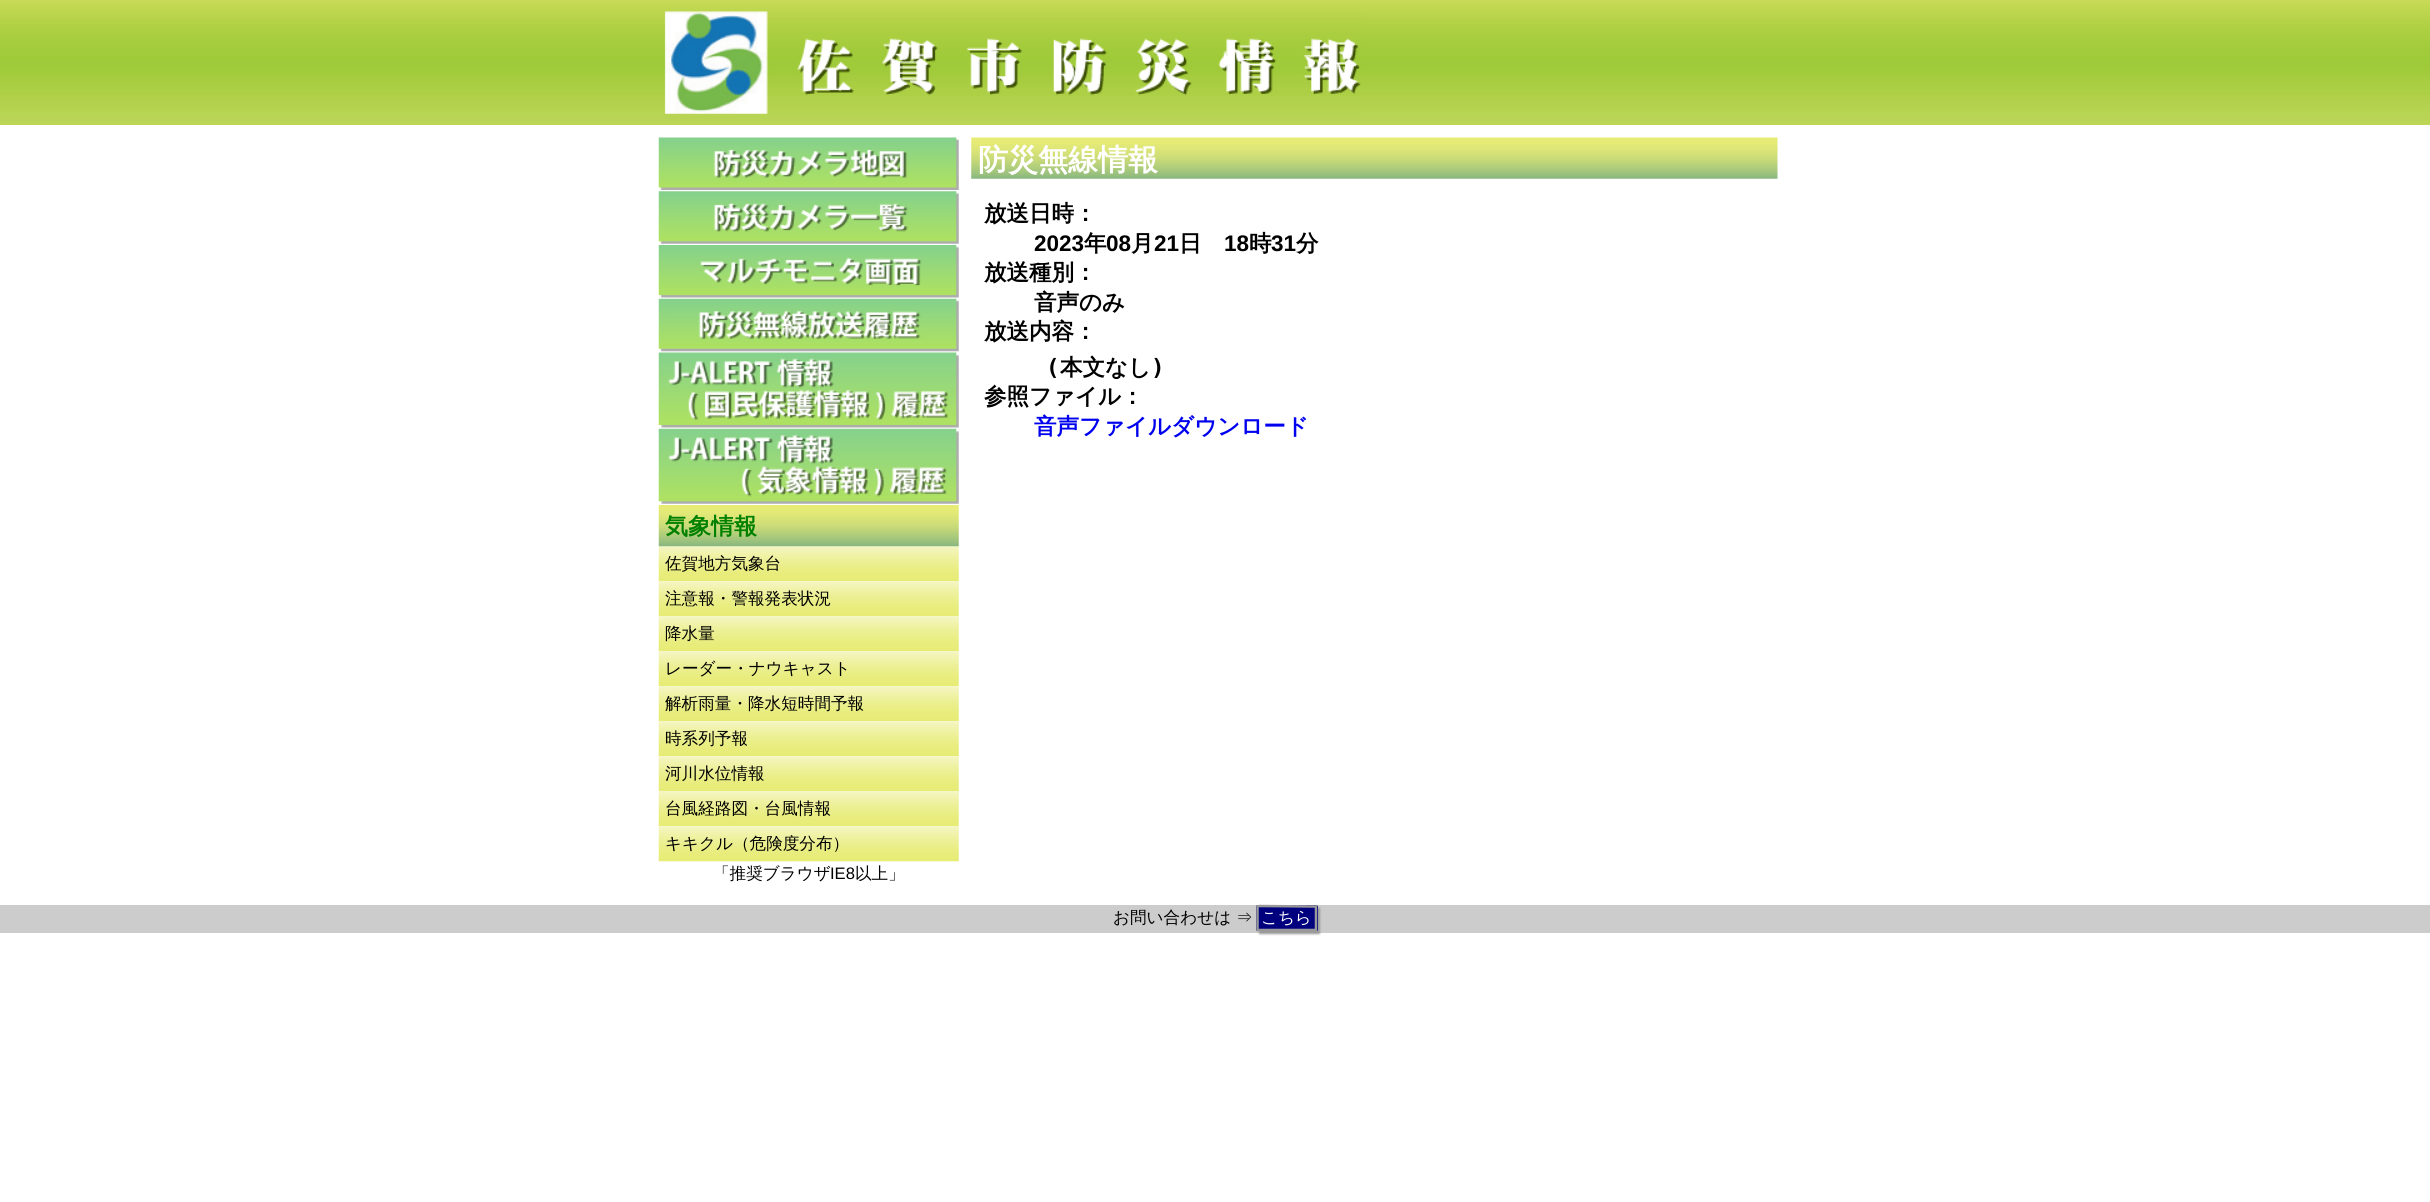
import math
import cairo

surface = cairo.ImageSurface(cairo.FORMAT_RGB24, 2430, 1202)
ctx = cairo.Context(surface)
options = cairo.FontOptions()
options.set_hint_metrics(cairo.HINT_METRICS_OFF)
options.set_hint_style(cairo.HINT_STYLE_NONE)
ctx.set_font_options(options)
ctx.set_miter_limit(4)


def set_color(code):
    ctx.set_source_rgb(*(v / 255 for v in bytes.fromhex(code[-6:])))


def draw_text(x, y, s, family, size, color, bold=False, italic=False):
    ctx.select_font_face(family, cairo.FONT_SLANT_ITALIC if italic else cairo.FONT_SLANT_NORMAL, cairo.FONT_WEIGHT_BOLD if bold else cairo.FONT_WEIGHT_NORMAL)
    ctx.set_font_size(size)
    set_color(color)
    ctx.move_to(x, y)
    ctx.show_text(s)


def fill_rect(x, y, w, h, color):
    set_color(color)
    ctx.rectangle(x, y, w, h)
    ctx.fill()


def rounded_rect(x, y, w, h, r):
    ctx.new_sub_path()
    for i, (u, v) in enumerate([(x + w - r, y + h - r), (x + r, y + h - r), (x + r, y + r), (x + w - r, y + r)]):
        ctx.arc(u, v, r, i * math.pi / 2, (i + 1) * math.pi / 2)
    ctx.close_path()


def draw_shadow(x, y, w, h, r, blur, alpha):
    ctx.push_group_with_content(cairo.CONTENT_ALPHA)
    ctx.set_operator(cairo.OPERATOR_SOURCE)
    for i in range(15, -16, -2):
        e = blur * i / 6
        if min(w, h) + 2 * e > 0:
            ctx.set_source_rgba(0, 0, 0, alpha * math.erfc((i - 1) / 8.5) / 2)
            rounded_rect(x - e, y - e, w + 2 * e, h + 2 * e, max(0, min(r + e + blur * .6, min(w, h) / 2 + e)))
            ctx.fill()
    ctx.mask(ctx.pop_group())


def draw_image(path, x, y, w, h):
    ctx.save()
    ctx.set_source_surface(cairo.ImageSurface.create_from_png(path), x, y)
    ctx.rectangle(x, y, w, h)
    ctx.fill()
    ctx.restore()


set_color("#ffffff")
ctx.paint()
draw_image("assets/img1.png", 0, 0, 2430, 125)
draw_image("assets/img2.png", 664, 11, 697, 103)
draw_image("assets/img3.png", 971, 137, 807, 42)
draw_text(978, 170, "防災無線情報", "WenQuanYi Zen Hei", 30, "#ffffff", bold=True)
draw_text(984, 221, "放送日時：", "WenQuanYi Zen Hei", 22.5, "#000000", bold=True)
draw_text(1034, 251, "2023", "Liberation Sans", 22.5, "#000000", bold=True)
draw_text(1084, 251, "年", "WenQuanYi Zen Hei", 22.5, "#000000", bold=True)
draw_text(1106, 251, "08", "Liberation Sans", 22.5, "#000000", bold=True)
draw_text(1131, 251, "月", "WenQuanYi Zen Hei", 22.5, "#000000", bold=True)
draw_text(1154, 251, "21", "Liberation Sans", 22.5, "#000000", bold=True)
draw_text(1179, 251, "日", "WenQuanYi Zen Hei", 22.5, "#000000", bold=True)
draw_text(1224, 251, "18", "Liberation Sans", 22.5, "#000000", bold=True)
draw_text(1249, 251, "時", "WenQuanYi Zen Hei", 22.5, "#000000", bold=True)
draw_text(1271, 251, "31", "Liberation Sans", 22.5, "#000000", bold=True)
draw_text(1296, 251, "分", "WenQuanYi Zen Hei", 22.5, "#000000", bold=True)
draw_text(984, 280, "放送種別：", "WenQuanYi Zen Hei", 22.5, "#000000", bold=True)
draw_text(1034, 310, "音声のみ", "WenQuanYi Zen Hei", 22.5, "#000000", bold=True)
draw_text(984, 339, "放送内容：", "WenQuanYi Zen Hei", 22.5, "#000000", bold=True)
draw_text(1046, 375, "(", "DejaVu Sans Mono", 22.5, "#000000", bold=True)
draw_text(1060, 375, "本文なし", "WenQuanYi Zen Hei", 22.5, "#000000", bold=True)
draw_text(1151, 375, ")", "DejaVu Sans Mono", 22.5, "#000000", bold=True)
draw_text(984, 404, "参照ファイル：", "WenQuanYi Zen Hei", 22.5, "#000000", bold=True)
draw_text(1034, 434, "音声ファイルダウンロード", "WenQuanYi Zen Hei", 22.5, "#0000ee", bold=True)
draw_image("assets/img4.png", 658, 137, 301, 53)
draw_image("assets/img5.png", 658, 191, 301, 53)
draw_image("assets/img6.png", 658, 245, 301, 53)
draw_image("assets/img7.png", 658, 298, 301, 54)
draw_image("assets/img8.png", 658, 352, 301, 76)
draw_image("assets/img9.png", 658, 428, 301, 76)
draw_image("assets/img11.png", 658, 546, 301, 36)
draw_image("assets/img10.png", 658, 505, 301, 42)
draw_text(665, 534, "気象情報", "WenQuanYi Zen Hei", 23, "#008000", bold=True)
draw_text(665, 569, "佐賀地方気象台", "WenQuanYi Zen Hei Medium", 16.6, "#000000")
draw_image("assets/img12.png", 658, 581, 301, 36)
draw_text(665, 604, "注意報・警報発表状況", "WenQuanYi Zen Hei Medium", 16.6, "#000000")
draw_image("assets/img12.png", 658, 616, 301, 36)
draw_text(665, 639, "降水量", "WenQuanYi Zen Hei Medium", 16.6, "#000000")
draw_image("assets/img12.png", 658, 651, 301, 36)
draw_text(665, 674, "レーダー・ナウキャスト", "WenQuanYi Zen Hei Medium", 16.6, "#000000")
draw_image("assets/img12.png", 658, 686, 301, 36)
draw_text(665, 709, "解析雨量・降水短時間予報", "WenQuanYi Zen Hei Medium", 16.6, "#000000")
draw_image("assets/img12.png", 658, 721, 301, 36)
draw_text(665, 744, "時系列予報", "WenQuanYi Zen Hei Medium", 16.6, "#000000")
draw_image("assets/img12.png", 658, 756, 301, 36)
draw_text(665, 779, "河川水位情報", "WenQuanYi Zen Hei Medium", 16.6, "#000000")
draw_image("assets/img12.png", 658, 791, 301, 36)
draw_text(665, 814, "台風経路図・台風情報", "WenQuanYi Zen Hei Medium", 16.6, "#000000")
draw_image("assets/img12.png", 658, 826, 301, 36)
draw_text(665, 849, "キキクル（危険度分布）", "WenQuanYi Zen Hei Medium", 16.6, "#000000")
draw_text(713, 879, "「推奨ブラウザ", "WenQuanYi Zen Hei Medium", 16.6, "#000000")
draw_text(830, 879, "IE8", "Liberation Sans", 16.6, "#000000")
draw_text(855, 879, "以上」", "WenQuanYi Zen Hei Medium", 16.6, "#000000")
fill_rect(0, 905, 2430, 28, "#cccccc")
draw_text(1113, 923, "お問い合わせは ⇒", "WenQuanYi Zen Hei Medium", 16.6, "#000000")
set_color("#999999")
draw_shadow(1259, 908, 61, 26, 1, 1, 1)
set_color("#00007f")
ctx.new_path()
ctx.move_to(1259, 905)
ctx.line_to(1314, 905)
ctx.curve_to(1316, 905, 1318, 906, 1318, 906)
ctx.line_to(1318, 930)
ctx.curve_to(1318, 931, 1316, 931, 1314, 931)
ctx.line_to(1259, 931)
ctx.curve_to(1258, 931, 1256, 931, 1256, 930)
ctx.line_to(1256, 906)
ctx.curve_to(1256, 906, 1258, 905, 1259, 905)
ctx.close_path()
ctx.fill()
ctx.new_path()
ctx.move_to(1259.5, 906)
ctx.line_to(1316, 906.5)
ctx.line_to(1316, 930)
ctx.line_to(1257.5, 930)
ctx.line_to(1257.5, 906.5)
ctx.close_path()
set_color("#999999")
ctx.set_line_width(2.5)
ctx.stroke()
draw_text(1261, 923, "こちら", "WenQuanYi Zen Hei Medium", 16.5, "#ffffff")
surface.write_to_png("output.png")
